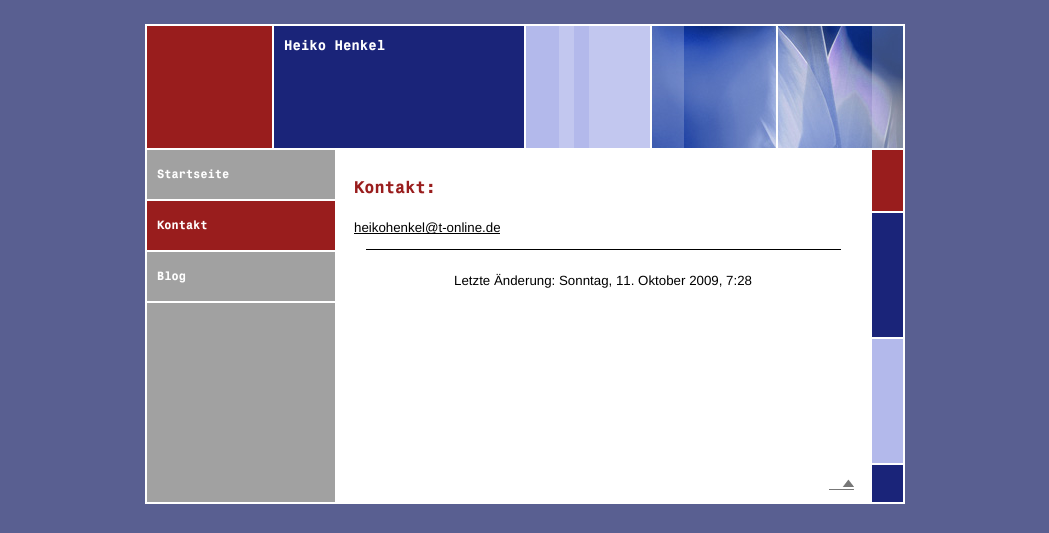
import math
import cairo

surface = cairo.ImageSurface(cairo.FORMAT_RGB24, 1049, 533)
ctx = cairo.Context(surface)
options = cairo.FontOptions()
options.set_hint_metrics(cairo.HINT_METRICS_OFF)
options.set_hint_style(cairo.HINT_STYLE_NONE)
ctx.set_font_options(options)
ctx.set_miter_limit(4)


def set_color(code):
    ctx.set_source_rgb(*(v / 255 for v in bytes.fromhex(code[-6:])))


def draw_text(x, y, s, family, size, color, bold=False, italic=False):
    ctx.select_font_face(family, cairo.FONT_SLANT_ITALIC if italic else cairo.FONT_SLANT_NORMAL, cairo.FONT_WEIGHT_BOLD if bold else cairo.FONT_WEIGHT_NORMAL)
    ctx.set_font_size(size)
    set_color(color)
    ctx.move_to(x, y)
    ctx.show_text(s)


def fill_rect(x, y, w, h, color):
    set_color(color)
    ctx.rectangle(x, y, w, h)
    ctx.fill()


def draw_image(path, x, y, w, h):
    ctx.save()
    ctx.set_source_surface(cairo.ImageSurface.create_from_png(path), x, y)
    ctx.rectangle(x, y, w, h)
    ctx.fill()
    ctx.restore()


set_color("#595f91")
ctx.paint()
fill_rect(145, 24, 760, 2, "#ffffff")
fill_rect(147, 26, 125, 122, "#991d1d")
draw_image("assets/img1.png", 272, 26, 380, 5)
draw_image("assets/img2.png", 652, 26, 253, 122)
draw_image("assets/img3.png", 272, 31, 12, 117)
draw_image("assets/img4.png", 284, 31, 240, 28)
draw_image("assets/img5.png", 524, 31, 128, 117)
fill_rect(284, 59, 240, 89, "#1a2479")
fill_rect(145, 26, 2, 437, "#ffffff")
fill_rect(147, 179, 188, 284, "#a1a1a1")
draw_image("assets/img6.png", 147, 148, 188, 31)
draw_image("assets/img7.png", 147, 199, 188, 51)
draw_image("assets/img8.png", 147, 250, 188, 33)
fill_rect(147, 301, 188, 2, "#ffffff")
fill_rect(335, 148, 537, 315, "#ffffff")
draw_image("assets/img9.png", 872, 148, 33, 315)
draw_image("assets/img10.png", 355, 180, 78, 14)
fill_rect(354, 233, 146, 1, "#000000")
draw_text(354, 232, "heikohenkel@t-online.de", "Liberation Sans", 13.3, "#000000")
fill_rect(366, 249, 475, 1, "#000000")
draw_text(454, 285, "Letzte Änderung: Sonntag, 11. Oktober 2009, 7:28", "Liberation Sans", 13.3, "#000000")
draw_image("assets/img11.png", 145, 463, 760, 14)
draw_image("assets/img12.png", 145, 477, 684, 27)
draw_image("assets/img13.png", 829, 477, 25, 16)
draw_image("assets/img14.png", 854, 477, 51, 27)
fill_rect(829, 493, 25, 11, "#ffffff")
surface.write_to_png("output.png")
